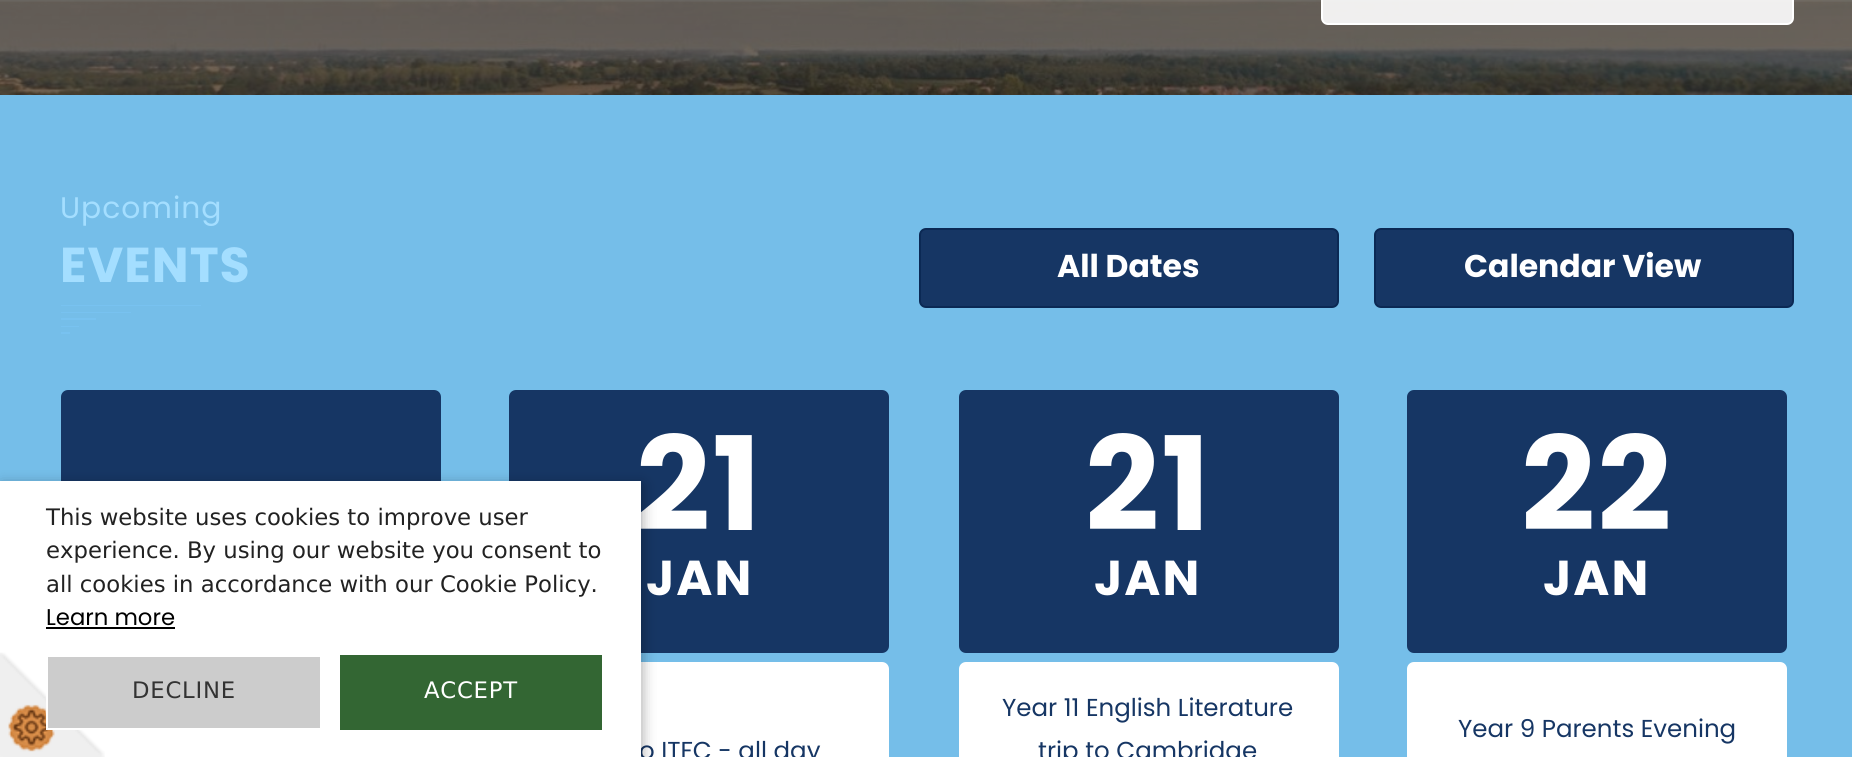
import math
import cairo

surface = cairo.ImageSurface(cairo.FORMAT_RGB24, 1852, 757)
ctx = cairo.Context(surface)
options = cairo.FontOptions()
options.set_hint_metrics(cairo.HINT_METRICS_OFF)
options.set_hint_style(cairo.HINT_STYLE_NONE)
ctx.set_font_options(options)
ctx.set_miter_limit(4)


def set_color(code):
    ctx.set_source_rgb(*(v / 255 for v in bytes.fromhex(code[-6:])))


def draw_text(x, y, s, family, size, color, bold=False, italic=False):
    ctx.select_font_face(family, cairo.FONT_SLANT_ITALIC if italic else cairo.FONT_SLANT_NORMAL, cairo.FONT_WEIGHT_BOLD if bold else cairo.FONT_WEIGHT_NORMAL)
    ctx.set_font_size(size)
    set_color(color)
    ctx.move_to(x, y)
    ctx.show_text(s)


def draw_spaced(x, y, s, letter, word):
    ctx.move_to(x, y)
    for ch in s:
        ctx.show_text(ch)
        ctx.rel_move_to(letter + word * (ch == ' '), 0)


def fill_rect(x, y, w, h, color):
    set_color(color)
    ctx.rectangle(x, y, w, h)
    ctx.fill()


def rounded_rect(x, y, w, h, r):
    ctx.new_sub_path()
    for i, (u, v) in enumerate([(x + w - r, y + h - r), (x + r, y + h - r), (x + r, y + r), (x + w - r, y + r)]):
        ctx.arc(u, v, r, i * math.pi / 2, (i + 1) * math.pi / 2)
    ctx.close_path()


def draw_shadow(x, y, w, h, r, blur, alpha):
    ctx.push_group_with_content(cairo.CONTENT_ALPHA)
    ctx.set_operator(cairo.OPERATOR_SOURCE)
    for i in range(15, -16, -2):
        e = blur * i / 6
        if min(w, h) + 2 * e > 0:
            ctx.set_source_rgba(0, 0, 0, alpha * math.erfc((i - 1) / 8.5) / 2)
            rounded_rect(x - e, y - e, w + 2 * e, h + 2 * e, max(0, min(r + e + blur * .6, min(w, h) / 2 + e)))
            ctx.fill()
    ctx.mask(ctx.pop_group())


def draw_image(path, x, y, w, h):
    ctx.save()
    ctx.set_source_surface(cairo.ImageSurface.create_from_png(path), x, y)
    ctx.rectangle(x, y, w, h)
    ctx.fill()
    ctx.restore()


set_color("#ffffff")
ctx.paint()
draw_image("assets/img1.png", 0, 0, 1852, 95)
draw_image("assets/img2.png", 0, 0, 1852, 95)
rounded_rect(1322, -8, 471, 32, 6)
set_color("#ffffff")
ctx.stroke()
ctx.set_source_rgba(1, 1, 1, 0.9)
ctx.rectangle(1323, 0, 469, 23)
ctx.fill()
fill_rect(0, 95, 1852, 662, "#75bee9")
draw_image("assets/img3.png", 123, 94, 1723, 1)
ctx.select_font_face("Poppins")
ctx.set_font_size(29.75)
set_color("#a4deff")
draw_spaced(60, 218, "Upcoming", 1, 0)
ctx.select_font_face("Poppins", cairo.FONT_SLANT_NORMAL, cairo.FONT_WEIGHT_BOLD)
ctx.set_font_size(49)
draw_spaced(60, 282, "EVENTS", 1, 0)
ctx.save()
ctx.rectangle(61, 305, 140, 29)
ctx.clip()
set_color("#78c2f0")
ctx.set_fill_rule(cairo.FILL_RULE_EVEN_ODD)
ctx.new_path()
ctx.move_to(61, 306)
ctx.line_to(61, 304)
ctx.line_to(201, 304)
ctx.line_to(201, 306)
ctx.close_path()
ctx.move_to(131, 313)
ctx.line_to(61, 313)
ctx.line_to(61, 312)
ctx.line_to(131, 312)
ctx.close_path()
ctx.move_to(96, 320)
ctx.line_to(61, 320)
ctx.line_to(61, 318)
ctx.line_to(96, 318)
ctx.close_path()
ctx.move_to(79, 327)
ctx.line_to(61, 327)
ctx.line_to(61, 326)
ctx.line_to(79, 326)
ctx.close_path()
ctx.move_to(70, 334)
ctx.line_to(61, 334)
ctx.line_to(61, 332)
ctx.line_to(70, 332)
ctx.close_path()
ctx.fill()
ctx.restore()
set_color("#163664")
rounded_rect(920, 229, 418, 78, 6)
ctx.fill_preserve()
set_color("#0b2954")
ctx.stroke()
draw_text(1057, 277, "All Dates", "Poppins", 31.5, "#ffffff", bold=True)
set_color("#163664")
rounded_rect(1375, 229, 418, 78, 6)
ctx.fill_preserve()
set_color("#0b2954")
ctx.stroke()
draw_text(1464, 277, "Calendar View", "Poppins", 31.5, "#ffffff", bold=True)
set_color("#163664")
rounded_rect(61, 390, 380, 263, 7)
ctx.fill()
rounded_rect(509, 390, 380, 263, 7)
ctx.fill()
ctx.set_font_size(130)
set_color("#ffffff")
draw_spaced(636, 530, "21", 2, 0)
ctx.set_font_size(49)
draw_spaced(646, 595, "JAN", 2, 0)
rounded_rect(509, 662, 380, 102, 7)
ctx.fill()
draw_text(639, 759, "o ITFC - all day", "Poppins", 24.5, "#163664")
rounded_rect(959, 390, 380, 263, 7)
ctx.fill()
ctx.select_font_face("Poppins", cairo.FONT_SLANT_NORMAL, cairo.FONT_WEIGHT_BOLD)
ctx.set_font_size(130)
set_color("#ffffff")
draw_spaced(1085, 530, "21", 2, 0)
ctx.set_font_size(49)
draw_spaced(1094, 595, "JAN", 2, 0)
rounded_rect(959, 662, 380, 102, 7)
ctx.fill()
draw_text(1002, 716, "Year 11 English Literature", "Poppins", 24.5, "#163664")
draw_text(1038, 759, "trip to Cambridge", "Poppins", 24.5, "#163664")
rounded_rect(1407, 390, 380, 263, 7)
ctx.fill()
ctx.select_font_face("Poppins", cairo.FONT_SLANT_NORMAL, cairo.FONT_WEIGHT_BOLD)
ctx.set_font_size(130)
set_color("#ffffff")
draw_spaced(1521, 530, "22", 2, 0)
ctx.set_font_size(49)
draw_spaced(1543, 595, "JAN", 2, 0)
rounded_rect(1407, 662, 380, 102, 7)
ctx.fill()
draw_text(1458, 737, "Year 9 Parents Evening", "Poppins", 24.5, "#163664")
set_color("#000000")
draw_shadow(2, 485, 640, 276, 0, 7, 0.35)
fill_rect(0, 481, 641, 276, "#ffffff")
draw_image("assets/img4.png", 0, 652, 105, 105)
draw_text(46, 525, "This website uses cookies to improve user", "DejaVu Sans", 22.75, "#222222")
draw_text(46, 558, "experience. By using our website you consent to", "DejaVu Sans", 22.75, "#222222")
draw_text(46, 592, "all cookies in accordance with our Cookie Policy.", "DejaVu Sans", 22.75, "#222222")
draw_text(46, 625, "Learn more", "Poppins", 22.75, "#000000")
fill_rect(46, 627, 129, 2, "#000000")
set_color("#cccccc")
ctx.rectangle(47, 656, 274, 73)
ctx.fill_preserve()
set_color("#ffffff")
ctx.stroke()
ctx.select_font_face("DejaVu Sans")
set_color("#333333")
draw_spaced(132, 698, "DECLINE", 0.75, 0)
fill_rect(340, 655, 262, 75, "#336633")
set_color("#ffffff")
draw_spaced(424, 698, "ACCEPT", 0.75, 0)
surface.write_to_png("output.png")
